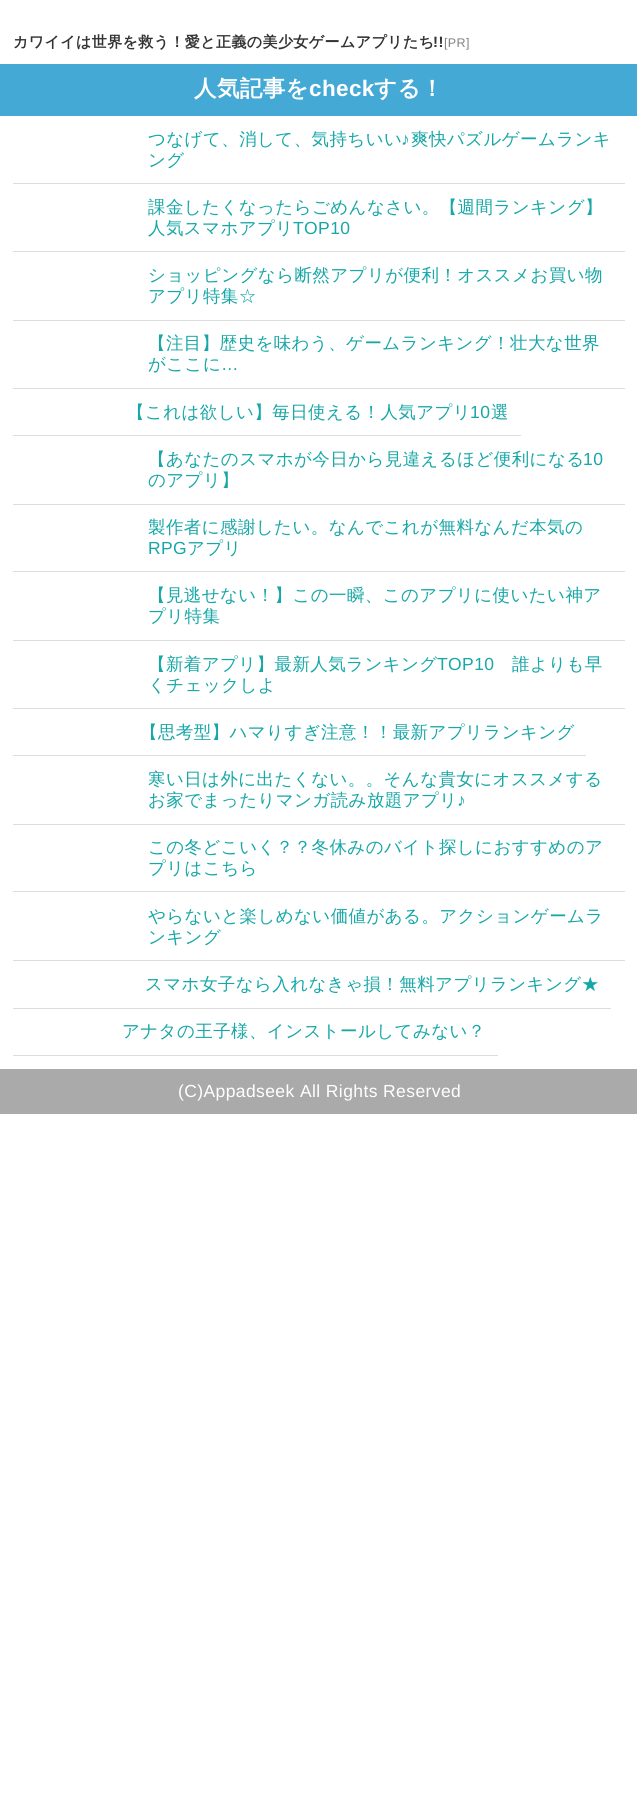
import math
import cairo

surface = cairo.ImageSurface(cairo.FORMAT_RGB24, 637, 1817)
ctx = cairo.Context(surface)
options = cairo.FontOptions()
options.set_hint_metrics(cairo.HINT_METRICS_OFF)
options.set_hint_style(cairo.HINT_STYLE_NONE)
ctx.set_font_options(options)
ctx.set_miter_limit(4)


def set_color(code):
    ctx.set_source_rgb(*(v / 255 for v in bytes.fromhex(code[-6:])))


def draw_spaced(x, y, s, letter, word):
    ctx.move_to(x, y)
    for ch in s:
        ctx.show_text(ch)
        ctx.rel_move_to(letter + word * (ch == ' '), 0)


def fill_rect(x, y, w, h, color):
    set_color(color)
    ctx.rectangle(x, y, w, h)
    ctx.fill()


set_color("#ffffff")
ctx.paint()
ctx.select_font_face("WenQuanYi Zen Hei", cairo.FONT_SLANT_NORMAL, cairo.FONT_WEIGHT_BOLD)
ctx.set_font_size(15)
set_color("#333333")
draw_spaced(13, 47, "カワイイは世界を救う！愛と正義の美少女ゲームアプリたち", 0.4, 0)
ctx.select_font_face("Liberation Sans", cairo.FONT_SLANT_NORMAL, cairo.FONT_WEIGHT_BOLD)
draw_spaced(433, 47, "!!", 0.4, 0)
ctx.select_font_face("Liberation Sans")
ctx.set_font_size(12.5)
set_color("#808080")
draw_spaced(444, 47, "[PR]", 0.4, 0)
fill_rect(0, 64, 637, 52, "#45a9d6")
ctx.select_font_face("WenQuanYi Zen Hei", cairo.FONT_SLANT_NORMAL, cairo.FONT_WEIGHT_BOLD)
ctx.set_font_size(22.5)
set_color("#ffffff")
draw_spaced(194, 96, "人気記事を", 0.4, 0)
ctx.select_font_face("Liberation Sans", cairo.FONT_SLANT_NORMAL, cairo.FONT_WEIGHT_BOLD)
draw_spaced(309, 96, "check", 0.4, 0)
ctx.select_font_face("WenQuanYi Zen Hei", cairo.FONT_SLANT_NORMAL, cairo.FONT_WEIGHT_BOLD)
draw_spaced(374, 96, "する！", 0.4, 0)
fill_rect(13, 183, 612, 1, "#dddddd")
ctx.select_font_face("WenQuanYi Zen Hei Medium")
ctx.set_font_size(17.5)
set_color("#16a7a6")
draw_spaced(148, 145, "つなげて、消して、気持ちいい", 0.4, 0)
ctx.select_font_face("Liberation Sans")
draw_spaced(401, 145, "♪", 0.4, 0)
ctx.select_font_face("WenQuanYi Zen Hei Medium")
draw_spaced(411, 145, "爽快パズルゲームランキ", 0.4, 0)
draw_spaced(148, 166, "ング", 0.4, 0)
fill_rect(13, 251, 612, 1, "#dddddd")
set_color("#16a7a6")
draw_spaced(148, 213, "課金したくなったらごめんなさい。【週間ランキング】", 0.4, 0)
draw_spaced(148, 234, "人気スマホアプリ", 0.4, 0)
ctx.select_font_face("Liberation Sans")
draw_spaced(293, 234, "TOP10", 0.4, 0)
fill_rect(13, 320, 612, 1, "#dddddd")
ctx.select_font_face("WenQuanYi Zen Hei Medium")
set_color("#16a7a6")
draw_spaced(148, 281, "ショッピングなら断然アプリが便利！オススメお買い物", 0.4, 0)
draw_spaced(148, 302, "アプリ特集☆", 0.4, 0)
fill_rect(13, 388, 612, 1, "#dddddd")
set_color("#16a7a6")
draw_spaced(148, 349, "【注目】歴史を味わう、ゲームランキング！壮大な世界", 0.4, 0)
draw_spaced(148, 370, "がここに", 0.4, 0)
ctx.select_font_face("Liberation Sans")
draw_spaced(221, 370, "…", 0.4, 0)
fill_rect(13, 435, 508, 1, "#dddddd")
ctx.select_font_face("WenQuanYi Zen Hei Medium")
set_color("#16a7a6")
draw_spaced(127, 418, "【これは欲しい】毎日使える！人気アプリ", 0.4, 0)
ctx.select_font_face("Liberation Sans")
draw_spaced(470, 418, "10", 0.4, 0)
ctx.select_font_face("WenQuanYi Zen Hei Medium")
draw_spaced(491, 418, "選", 0.4, 0)
fill_rect(13, 504, 612, 1, "#dddddd")
set_color("#16a7a6")
draw_spaced(148, 465, "【あなたのスマホが今日から見違えるほど便利になる", 0.4, 0)
ctx.select_font_face("Liberation Sans")
draw_spaced(583, 465, "10", 0.4, 0)
ctx.select_font_face("WenQuanYi Zen Hei Medium")
draw_spaced(148, 486, "のアプリ】", 0.4, 0)
fill_rect(13, 571, 612, 1, "#dddddd")
set_color("#16a7a6")
draw_spaced(148, 533, "製作者に感謝したい。なんでこれが無料なんだ本気の", 0.4, 0)
ctx.select_font_face("Liberation Sans")
draw_spaced(148, 554, "RPG", 0.4, 0)
ctx.select_font_face("WenQuanYi Zen Hei Medium")
draw_spaced(187, 554, "アプリ", 0.4, 0)
fill_rect(13, 640, 612, 1, "#dddddd")
set_color("#16a7a6")
draw_spaced(148, 601, "【見逃せない！】この一瞬、このアプリに使いたい神ア", 0.4, 0)
draw_spaced(148, 622, "プリ特集", 0.4, 0)
fill_rect(13, 708, 612, 1, "#dddddd")
set_color("#16a7a6")
draw_spaced(148, 670, "【新着アプリ】最新人気ランキング", 0.4, 0)
ctx.select_font_face("Liberation Sans")
draw_spaced(437, 670, "TOP10", 0.4, 0)
ctx.select_font_face("WenQuanYi Zen Hei Medium")
draw_spaced(512, 670, "誰よりも早", 0.4, 0)
draw_spaced(148, 691, "くチェックしよ", 0.4, 0)
fill_rect(13, 755, 573, 1, "#dddddd")
set_color("#16a7a6")
draw_spaced(140, 738, "【思考型】ハマりすぎ注意！！最新アプリランキング", 0.4, 0)
fill_rect(13, 824, 612, 1, "#dddddd")
set_color("#16a7a6")
draw_spaced(148, 785, "寒い日は外に出たくない。。そんな貴女にオススメする", 0.4, 0)
draw_spaced(148, 806, "お家でまったりマンガ読み放題アプリ", 0.4, 0)
ctx.select_font_face("Liberation Sans")
draw_spaced(457, 806, "♪", 0.4, 0)
fill_rect(13, 891, 612, 1, "#dddddd")
ctx.select_font_face("WenQuanYi Zen Hei Medium")
set_color("#16a7a6")
draw_spaced(148, 853, "この冬どこいく？？冬休みのバイト探しにおすすめのア", 0.4, 0)
draw_spaced(148, 874, "プリはこちら", 0.4, 0)
fill_rect(13, 960, 612, 1, "#dddddd")
set_color("#16a7a6")
draw_spaced(148, 922, "やらないと楽しめない価値がある。アクションゲームラ", 0.4, 0)
draw_spaced(148, 943, "ンキング", 0.4, 0)
fill_rect(13, 1008, 598, 1, "#dddddd")
set_color("#16a7a6")
draw_spaced(145, 990, "スマホ女子なら入れなきゃ損！無料アプリランキング★", 0.4, 0)
fill_rect(13, 1055, 485, 1, "#dddddd")
set_color("#16a7a6")
draw_spaced(122, 1037, "アナタの王子様、インストールしてみない？", 0.4, 0)
fill_rect(0, 1069, 637, 45, "#aaaaaa")
ctx.select_font_face("Liberation Sans")
set_color("#ffffff")
draw_spaced(178, 1097, "(C)Appadseek All Rights Reserved", 0.4, 0)
surface.write_to_png("output.png")
